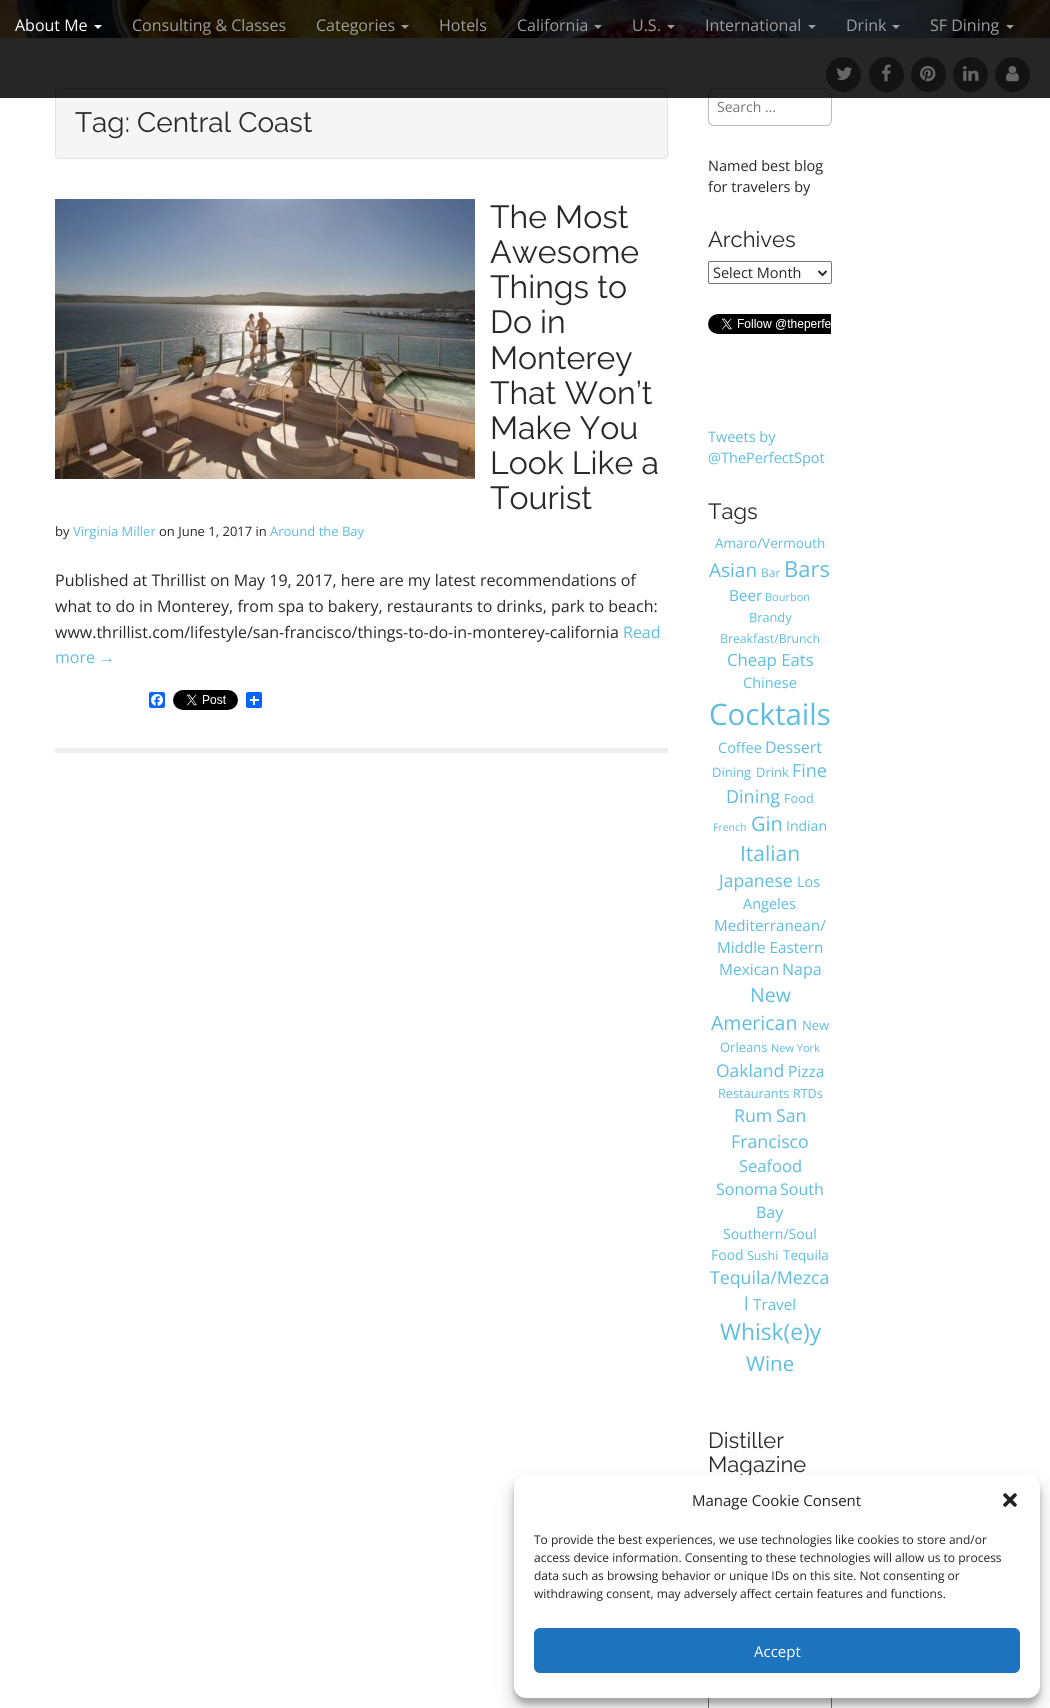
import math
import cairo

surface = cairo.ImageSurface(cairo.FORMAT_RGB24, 1050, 1708)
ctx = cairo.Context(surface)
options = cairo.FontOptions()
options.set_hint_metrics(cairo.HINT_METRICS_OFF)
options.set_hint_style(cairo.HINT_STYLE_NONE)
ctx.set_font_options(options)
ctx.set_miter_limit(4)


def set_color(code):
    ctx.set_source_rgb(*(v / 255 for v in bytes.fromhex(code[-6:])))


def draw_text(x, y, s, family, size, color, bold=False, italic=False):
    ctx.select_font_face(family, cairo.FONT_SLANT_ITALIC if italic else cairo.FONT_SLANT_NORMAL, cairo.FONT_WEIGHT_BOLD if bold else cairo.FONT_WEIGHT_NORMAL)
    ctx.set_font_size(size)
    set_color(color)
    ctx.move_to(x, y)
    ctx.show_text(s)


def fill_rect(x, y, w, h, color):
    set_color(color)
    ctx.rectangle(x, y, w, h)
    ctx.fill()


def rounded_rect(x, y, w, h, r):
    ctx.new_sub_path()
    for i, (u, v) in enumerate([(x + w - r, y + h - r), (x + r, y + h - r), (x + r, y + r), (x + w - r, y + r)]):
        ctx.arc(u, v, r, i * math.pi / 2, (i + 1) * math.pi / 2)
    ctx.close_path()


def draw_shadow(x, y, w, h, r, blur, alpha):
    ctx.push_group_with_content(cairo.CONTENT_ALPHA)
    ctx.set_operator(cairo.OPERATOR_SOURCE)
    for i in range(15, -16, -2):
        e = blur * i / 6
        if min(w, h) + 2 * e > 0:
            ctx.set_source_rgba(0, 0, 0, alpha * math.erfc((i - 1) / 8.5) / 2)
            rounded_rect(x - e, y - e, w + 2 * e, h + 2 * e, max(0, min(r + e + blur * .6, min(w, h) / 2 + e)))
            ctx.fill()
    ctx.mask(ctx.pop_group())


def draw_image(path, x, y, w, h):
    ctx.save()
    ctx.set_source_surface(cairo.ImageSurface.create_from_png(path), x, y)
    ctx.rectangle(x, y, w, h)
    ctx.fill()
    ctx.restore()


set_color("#ffffff")
ctx.paint()
draw_image("assets/img1.png", 0, 0, 1050, 38)
set_color("#f5f5f5")
rounded_rect(55, 88, 613, 71, 4)
ctx.fill()
set_color("#e9e9e9")
ctx.new_path()
ctx.move_to(59, 90)
ctx.line_to(664, 90)
ctx.curve_to(666, 90, 667, 91, 667, 93)
ctx.line_to(667, 92)
ctx.curve_to(667, 90, 666, 89, 664, 89)
ctx.line_to(59, 89)
ctx.curve_to(57, 89, 56, 90, 56, 92)
ctx.line_to(56, 93)
ctx.curve_to(56, 91, 57, 90, 59, 90)
ctx.close_path()
ctx.fill()
rounded_rect(55.5, 88.5, 612, 70, 3.5)
set_color("#e3e3e3")
ctx.set_line_width(1)
ctx.stroke()
rounded_rect(708.5, 88.5, 123, 37, 5.5)
set_color("#bbbbbb")
ctx.stroke()
ctx.set_source_rgba(0, 0, 0, 0.85)
ctx.rectangle(0, 0, 1050, 98)
ctx.fill()
draw_text(15, 31, "About Me", "Open Sans", 16, "#ffffff")
ctx.new_path()
ctx.move_to(94, 25)
ctx.line_to(102, 25)
ctx.line_to(98, 29)
ctx.close_path()
ctx.fill()
draw_text(132, 31, "Consulting & Classes", "Open Sans", 16, "#9d9d9d")
draw_text(316, 31, "Categories", "Open Sans", 16, "#9d9d9d")
ctx.new_path()
ctx.move_to(401, 25)
ctx.line_to(409, 25)
ctx.line_to(405, 29)
ctx.close_path()
ctx.fill()
draw_text(439, 31, "Hotels", "Open Sans", 16, "#9d9d9d")
draw_text(517, 31, "California", "Open Sans", 16, "#9d9d9d")
ctx.new_path()
ctx.move_to(594, 25)
ctx.line_to(602, 25)
ctx.line_to(598, 29)
ctx.close_path()
ctx.fill()
draw_text(632, 31, "U.S.", "Open Sans", 16, "#9d9d9d")
ctx.new_path()
ctx.move_to(667, 25)
ctx.line_to(675, 25)
ctx.line_to(671, 29)
ctx.close_path()
ctx.fill()
draw_text(705, 31, "International", "Open Sans", 16, "#9d9d9d")
ctx.new_path()
ctx.move_to(808, 25)
ctx.line_to(816, 25)
ctx.line_to(812, 29)
ctx.close_path()
ctx.fill()
draw_text(846, 31, "Drink", "Open Sans", 16, "#9d9d9d")
ctx.new_path()
ctx.move_to(892, 25)
ctx.line_to(900, 25)
ctx.line_to(896, 29)
ctx.close_path()
ctx.fill()
draw_text(930, 31, "SF Dining", "Open Sans", 16, "#9d9d9d")
ctx.new_path()
ctx.move_to(1006, 25)
ctx.line_to(1014, 25)
ctx.line_to(1010, 29)
ctx.close_path()
ctx.fill()
set_color("#131313")
ctx.arc(843.5, 74.5, 17.5, 0, 2 * math.pi)
ctx.fill()
draw_image("assets/img2.png", 836, 67, 16, 13)
ctx.arc(886.5, 74.5, 17.5, 0, 2 * math.pi)
ctx.fill()
draw_image("assets/img3.png", 882, 64, 9, 18)
ctx.arc(928.5, 74.5, 17.5, 0, 2 * math.pi)
ctx.fill()
draw_image("assets/img4.png", 920, 65, 16, 17)
ctx.arc(970.5, 74.5, 17.5, 0, 2 * math.pi)
ctx.fill()
draw_image("assets/img5.png", 963, 66, 16, 15)
ctx.arc(1012.5, 74.5, 17.5, 0, 2 * math.pi)
ctx.fill()
draw_image("assets/img6.png", 1006, 65, 13, 17)
draw_text(75, 132, "Tag: Central Coast", "Raleway Thin", 28, "#282828")
fill_rect(55, 748, 613, 5, "#eeeeee")
draw_image("assets/img7.png", 55, 199, 420, 280)
draw_text(490, 228, "The Most", "Raleway Thin", 32, "#282828")
draw_text(490, 263, "Awesome", "Raleway Thin", 32, "#282828")
draw_text(490, 298, "Things to", "Raleway Thin", 32, "#282828")
draw_text(490, 333, "Do in", "Raleway Thin", 32, "#282828")
draw_text(490, 369, "Monterey", "Raleway Thin", 32, "#282828")
draw_text(490, 404, "That Won’t", "Raleway Thin", 32, "#282828")
draw_text(490, 439, "Make You", "Raleway Thin", 32, "#282828")
draw_text(490, 474, "Look Like a", "Raleway Thin", 32, "#282828")
draw_text(490, 509, "Tourist", "Raleway Thin", 32, "#282828")
draw_text(55, 536, "by", "Open Sans", 13, "#282828")
draw_text(73, 536, "Virginia Miller", "Open Sans", 13, "#5cbde0")
draw_text(159, 536, "on June 1, 2017 in", "Open Sans", 13, "#282828")
draw_text(270, 536, "Around the Bay", "Open Sans", 13, "#5cbde0")
draw_text(55, 586, "Published at Thrillist on May 19, 2017, here are my latest recommendations of", "Open Sans", 16, "#282828")
draw_text(55, 612, "what to do in Monterey, from spa to bakery, restaurants to drinks, park to beach:", "Open Sans", 16, "#282828")
draw_text(55, 638, "www.thrillist.com/lifestyle/san-francisco/things-to-do-in-monterey-california", "Open Sans", 16, "#282828")
draw_text(623, 638, "Read", "Open Sans", 16, "#5cbde0")
draw_text(55, 663, "more", "Open Sans", 16, "#5cbde0")
draw_text(99, 663, "→", "Liberation Sans", 16, "#5cbde0")
set_color("#0866ff")
rounded_rect(149, 692, 16, 16, 2)
ctx.fill()
draw_image("assets/img8.png", 151, 694, 12, 12)
draw_image("assets/img9.png", 173, 690, 65, 20)
set_color("#0166ff")
rounded_rect(246, 692, 16, 16, 2)
ctx.fill()
fill_rect(253, 696, 2, 9, "#ffffff")
fill_rect(250, 699, 9, 2, "#ffffff")
draw_text(717, 112, "Search …", "Open Sans", 14, "#757575")
draw_text(708, 171, "Named best blog", "Open Sans", 14.5, "#282828")
draw_text(708, 192, "for travelers by", "Open Sans", 14.5, "#282828")
draw_text(708, 247, "Archives", "Raleway Thin", 22, "#282828")
rounded_rect(708.5, 261.5, 123, 22, 1.5)
set_color("#767676")
ctx.stroke()
ctx.new_path()
ctx.move_to(818.5, 271)
ctx.line_to(822.5, 275)
ctx.line_to(826.5, 271)
set_color("#282828")
ctx.set_line_width(2)
ctx.stroke()
draw_text(713, 278, "Select Month", "Open Sans", 14.5, "#282828")
draw_image("assets/img10.png", 708, 314, 123, 20)
draw_text(708, 442, "Tweets by", "Open Sans", 14.5, "#5cbde0")
draw_text(708, 463, "@ThePerfectSpot", "Open Sans", 14.5, "#5cbde0")
draw_text(708, 519, "Tags", "Raleway Thin", 22, "#282828")
draw_text(715, 548, "Amaro/Vermouth", "Open Sans", 13.5, "#5cbde0")
draw_text(709, 577, "Asian", "Open Sans", 19, "#5cbde0")
draw_text(761, 577, "Bar", "Open Sans", 12, "#5cbde0")
draw_text(784, 577, "Bars", "Open Sans", 22, "#5cbde0")
draw_text(729, 601, "Beer", "Open Sans", 15.25, "#5cbde0")
draw_text(765, 601, "Bourbon", "Open Sans", 11, "#5cbde0")
draw_text(749, 622, "Brandy", "Open Sans", 12.75, "#5cbde0")
draw_text(720, 643, "Breakfast/Brunch", "Open Sans", 12.25, "#5cbde0")
draw_text(727, 666, "Cheap Eats", "Open Sans", 16.75, "#5cbde0")
draw_text(743, 688, "Chinese", "Open Sans", 14.5, "#5cbde0")
draw_text(709, 725, "Cocktails", "Open Sans", 29.5, "#5cbde0")
draw_text(718, 753, "Coffee", "Open Sans", 14.5, "#5cbde0")
draw_text(765, 753, "Dessert", "Open Sans", 16, "#5cbde0")
draw_text(712, 777, "Dining", "Open Sans", 13, "#5cbde0")
draw_text(756, 777, "Drink", "Open Sans", 13, "#5cbde0")
draw_text(792, 777, "Fine", "Open Sans", 18, "#5cbde0")
draw_text(726, 803, "Dining", "Open Sans", 18, "#5cbde0")
draw_text(784, 803, "Food", "Open Sans", 12.75, "#5cbde0")
draw_text(713, 831, "French", "Open Sans", 10.5, "#5cbde0")
draw_text(751, 831, "Gin", "Open Sans", 20, "#5cbde0")
draw_text(786, 831, "Indian", "Open Sans", 14, "#5cbde0")
draw_text(740, 861, "Italian", "Open Sans", 21, "#5cbde0")
draw_text(719, 887, "Japanese", "Open Sans", 17.5, "#5cbde0")
draw_text(797, 887, "Los", "Open Sans", 14.5, "#5cbde0")
draw_text(743, 909, "Angeles", "Open Sans", 14.5, "#5cbde0")
draw_text(714, 931, "Mediterranean/", "Open Sans", 15.25, "#5cbde0")
draw_text(717, 953, "Middle Eastern", "Open Sans", 15.25, "#5cbde0")
draw_text(719, 975, "Mexican", "Open Sans", 15.5, "#5cbde0")
draw_text(782, 975, "Napa", "Open Sans", 16, "#5cbde0")
draw_text(750, 1002, "New", "Open Sans", 19.5, "#5cbde0")
draw_text(711, 1030, "American", "Open Sans", 19.5, "#5cbde0")
draw_text(802, 1030, "New", "Open Sans", 13, "#5cbde0")
draw_text(720, 1052, "Orleans", "Open Sans", 13, "#5cbde0")
draw_text(771, 1052, "New York", "Open Sans", 11, "#5cbde0")
draw_text(716, 1077, "Oakland", "Open Sans", 17.5, "#5cbde0")
draw_text(788, 1077, "Pizza", "Open Sans", 15.5, "#5cbde0")
draw_text(718, 1098, "Restaurants", "Open Sans", 12.75, "#5cbde0")
draw_text(793, 1098, "RTDs", "Open Sans", 12.5, "#5cbde0")
draw_text(734, 1122, "Rum", "Open Sans", 17.75, "#5cbde0")
draw_text(776, 1122, "San", "Open Sans", 17.75, "#5cbde0")
draw_text(731, 1148, "Francisco", "Open Sans", 17.75, "#5cbde0")
draw_text(739, 1172, "Seafood", "Open Sans", 16.5, "#5cbde0")
draw_text(716, 1195, "Sonoma", "Open Sans", 16, "#5cbde0")
draw_text(780, 1195, "South", "Open Sans", 16, "#5cbde0")
draw_text(756, 1218, "Bay", "Open Sans", 16, "#5cbde0")
draw_text(723, 1239, "Southern/Soul", "Open Sans", 14, "#5cbde0")
draw_text(711, 1260, "Food", "Open Sans", 14, "#5cbde0")
draw_text(747, 1260, "Sushi", "Open Sans", 12.5, "#5cbde0")
draw_text(783, 1260, "Tequila", "Open Sans", 13.5, "#5cbde0")
draw_text(710, 1284, "Tequila/Mezca", "Open Sans", 17.75, "#5cbde0")
draw_text(744, 1310, "l", "Open Sans", 17.75, "#5cbde0")
draw_text(753, 1310, "Travel", "Open Sans", 15.25, "#5cbde0")
draw_text(720, 1340, "Whisk(e)y", "Open Sans", 22.75, "#5cbde0")
draw_text(746, 1371, "Wine", "Open Sans", 20.5, "#5cbde0")
draw_text(708, 1448, "Distiller", "Raleway Thin", 22, "#282828")
draw_text(708, 1472, "Magazine", "Raleway Thin", 22, "#282828")
ctx.rectangle(708.5, 1535.5, 123, 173)
set_color("#777777")
ctx.set_line_width(1)
ctx.stroke()
set_color("#000000")
draw_shadow(514, 1481, 526, 223, 12, 3, 0.23)
draw_shadow(514, 1485, 526, 223, 12, 10, 0.19)
set_color("#ffffff")
rounded_rect(514, 1475, 526, 223, 12)
ctx.fill()
draw_text(692, 1506, "Manage Cookie Consent", "Open Sans", 15, "#222222")
draw_image("assets/img11.png", 1003, 1493, 14, 14)
draw_text(534, 1544, "To provide the best experiences, we use technologies like cookies to store and/or", "Open Sans", 12, "#222222")
draw_text(534, 1562, "access device information. Consenting to these technologies will allow us to process", "Open Sans", 12, "#222222")
draw_text(534, 1580, "data such as browsing behavior or unique IDs on this site. Not consenting or", "Open Sans", 12, "#222222")
draw_text(534, 1598, "withdrawing consent, may adversely affect certain features and functions.", "Open Sans", 12, "#222222")
set_color("#1e73be")
rounded_rect(534.5, 1628.5, 485, 44, 5.5)
ctx.fill_preserve()
ctx.stroke()
draw_text(754, 1657, "Accept", "Open Sans", 15, "#ffffff")
surface.write_to_png("output.png")
